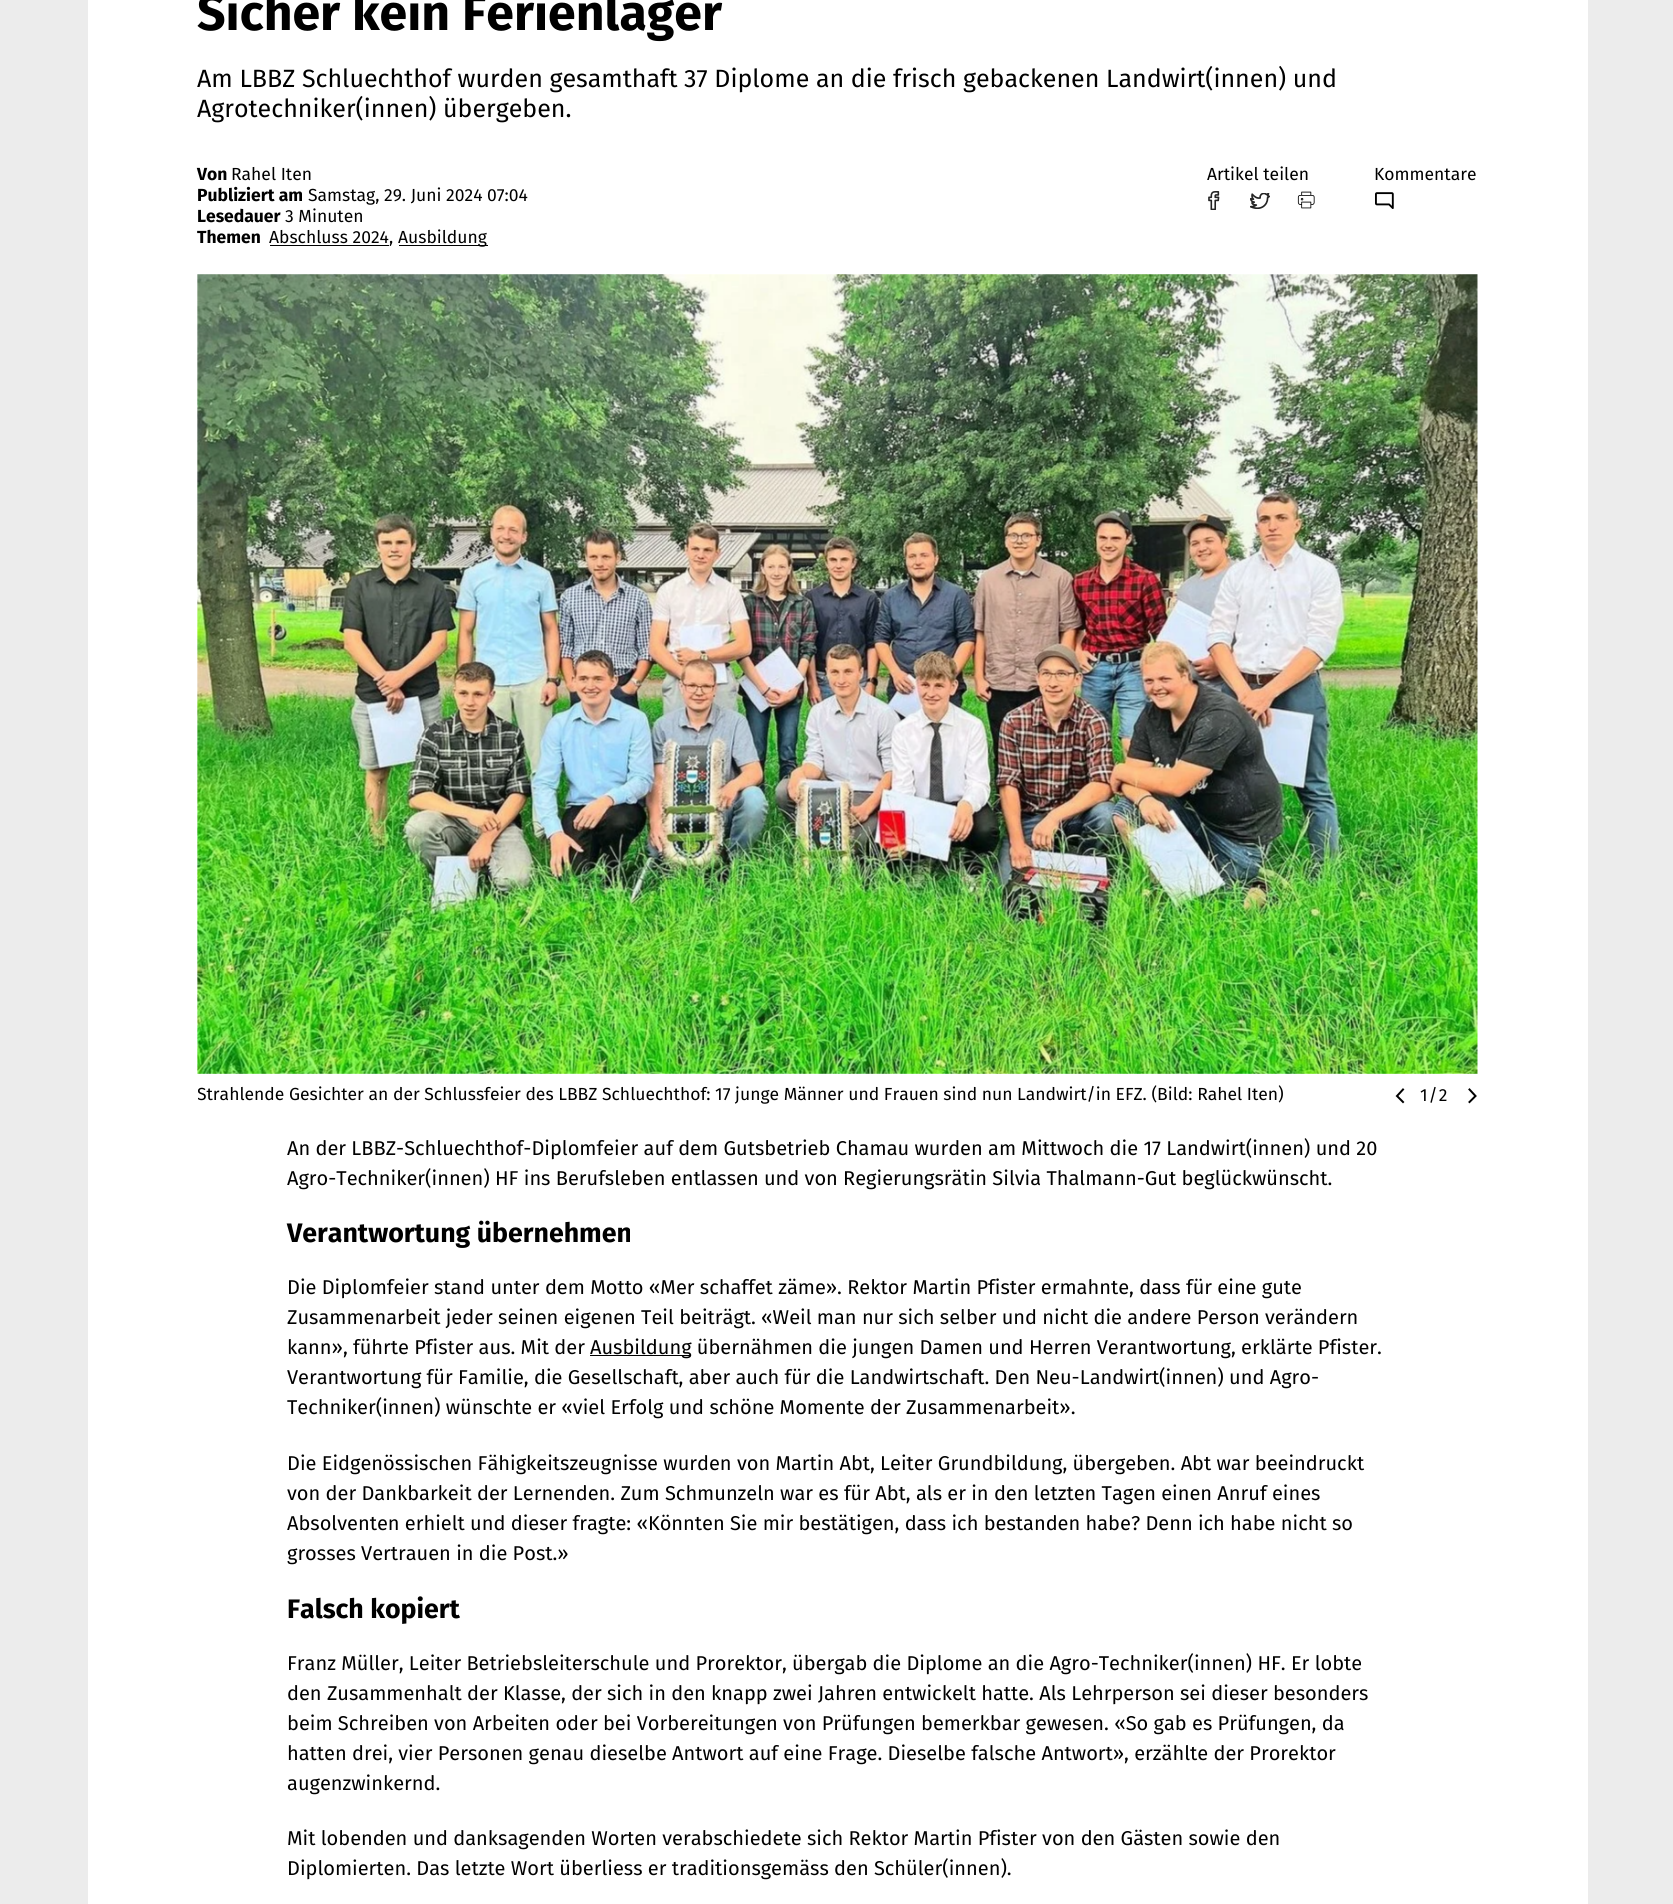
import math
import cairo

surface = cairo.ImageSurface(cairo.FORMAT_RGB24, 1673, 1904)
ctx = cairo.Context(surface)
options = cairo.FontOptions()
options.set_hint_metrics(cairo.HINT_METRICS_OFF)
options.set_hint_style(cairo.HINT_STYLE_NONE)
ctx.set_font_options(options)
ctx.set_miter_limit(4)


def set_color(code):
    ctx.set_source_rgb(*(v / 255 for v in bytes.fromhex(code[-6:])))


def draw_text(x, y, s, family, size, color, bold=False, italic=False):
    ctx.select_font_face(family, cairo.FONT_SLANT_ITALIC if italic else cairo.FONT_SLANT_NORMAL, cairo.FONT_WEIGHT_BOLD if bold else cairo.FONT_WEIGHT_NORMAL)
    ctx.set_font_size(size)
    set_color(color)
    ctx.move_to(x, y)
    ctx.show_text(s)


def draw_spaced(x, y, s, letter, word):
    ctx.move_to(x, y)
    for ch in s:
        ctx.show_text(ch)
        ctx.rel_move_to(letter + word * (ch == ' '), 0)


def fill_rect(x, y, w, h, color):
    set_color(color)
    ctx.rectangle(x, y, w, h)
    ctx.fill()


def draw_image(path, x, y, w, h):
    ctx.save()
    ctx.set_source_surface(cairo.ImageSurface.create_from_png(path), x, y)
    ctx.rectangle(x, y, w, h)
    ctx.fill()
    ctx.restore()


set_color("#ececec")
ctx.paint()
fill_rect(88, 0, 1500, 1904, "#ffffff")
draw_text(197, 30, "Sicher kein Ferienlager", "Fira Sans", 50, "#000000", bold=True)
draw_text(197, 87, "Am LBBZ Schluechthof wurden gesamthaft 37 Diplome an die frisch gebackenen Landwirt(innen) und", "Fira Sans", 25, "#000000")
draw_text(197, 117, "Agrotechniker(innen) übergeben.", "Fira Sans", 25, "#000000")
draw_text(197, 180, "Von", "Fira Sans", 17.5, "#000000", bold=True)
draw_text(231, 180, "Rahel Iten", "Fira Sans", 17.5, "#000000")
draw_text(197, 201, "Publiziert am", "Fira Sans", 17.5, "#000000", bold=True)
draw_text(308, 201, "Samstag, 29. Juni 2024 07:04", "Fira Sans", 17.5, "#000000")
draw_text(197, 222, "Lesedauer", "Fira Sans", 17.5, "#000000", bold=True)
draw_text(285, 222, "3 Minuten", "Fira Sans", 17.5, "#000000")
draw_text(197, 243, "Themen", "Fira Sans", 17.5, "#000000", bold=True)
fill_rect(270, 245, 119, 1, "#000000")
draw_text(269, 243, "Abschluss 2024,", "Fira Sans", 17.5, "#000000")
fill_rect(399, 245, 89, 1, "#000000")
draw_text(398, 243, "Ausbildung", "Fira Sans", 17.5, "#000000")
draw_text(1207, 180, "Artikel teilen", "Fira Sans", 17.5, "#000000")
draw_image("assets/img1.png", 1208, 191, 12, 19)
draw_image("assets/img2.png", 1250, 193, 20, 16)
draw_image("assets/img3.png", 1297, 191, 18, 18)
draw_text(1374, 180, "Kommentare", "Fira Sans", 17.5, "#000000")
draw_image("assets/img4.png", 1375, 192, 19, 17)
draw_image("assets/img5.png", 197, 274, 1281, 800)
ctx.save()
ctx.rectangle(198, 274, 1280, 860)
ctx.clip()
draw_text(197, 1100, "Strahlende Gesichter an der Schlussfeier des LBBZ Schluechthof: 17 junge Männer und Frauen sind nun Landwirt/in EFZ. (Bild: Rahel Iten)", "Fira Sans", 17.5, "#000000")
ctx.restore()
ctx.new_path()
ctx.move_to(1397, 1096)
ctx.line_to(1403, 1089.5)
ctx.move_to(1397, 1096)
ctx.line_to(1403, 1102)
ctx.set_line_cap(cairo.LINE_CAP_SQUARE)
ctx.stroke()
draw_spaced(1420, 1101, "1/2", 1, 0)
ctx.new_path()
ctx.move_to(1475.5, 1096)
ctx.line_to(1469.5, 1089.5)
ctx.move_to(1475.5, 1096)
ctx.line_to(1469.5, 1102)
ctx.stroke()
draw_text(287, 1155, "An der LBBZ-Schluechthof-Diplomfeier auf dem Gutsbetrieb Chamau wurden am Mittwoch die 17 Landwirt(innen) und 20", "Fira Sans", 20, "#000000")
draw_text(287, 1185, "Agro-Techniker(innen) HF ins Berufsleben entlassen und von Regierungsrätin Silvia Thalmann-Gut beglückwünscht.", "Fira Sans", 20, "#000000")
draw_text(287, 1242, "Verantwortung übernehmen", "Fira Sans", 26.75, "#000000", bold=True)
draw_text(287, 1294, "Die Diplomfeier stand unter dem Motto «Mer schaffet zäme». Rektor Martin Pfister ermahnte, dass für eine gute", "Fira Sans", 20, "#000000")
draw_text(287, 1324, "Zusammenarbeit jeder seinen eigenen Teil beiträgt. «Weil man nur sich selber und nicht die andere Person verändern", "Fira Sans", 20, "#000000")
draw_text(287, 1354, "kann», führte Pfister aus. Mit der", "Fira Sans", 20, "#000000")
fill_rect(590, 1355, 101, 1, "#000000")
draw_text(590, 1354, "Ausbildung übernähmen die jungen Damen und Herren Verantwortung, erklärte Pfister.", "Fira Sans", 20, "#000000")
draw_text(287, 1384, "Verantwortung für Familie, die Gesellschaft, aber auch für die Landwirtschaft. Den Neu-Landwirt(innen) und Agro-", "Fira Sans", 20, "#000000")
draw_text(287, 1414, "Techniker(innen) wünschte er «viel Erfolg und schöne Momente der Zusammenarbeit».", "Fira Sans", 20, "#000000")
draw_text(287, 1470, "Die Eidgenössischen Fähigkeitszeugnisse wurden von Martin Abt, Leiter Grundbildung, übergeben. Abt war beeindruckt", "Fira Sans", 20, "#000000")
draw_text(287, 1500, "von der Dankbarkeit der Lernenden. Zum Schmunzeln war es für Abt, als er in den letzten Tagen einen Anruf eines", "Fira Sans", 20, "#000000")
draw_text(287, 1530, "Absolventen erhielt und dieser fragte: «Könnten Sie mir bestätigen, dass ich bestanden habe? Denn ich habe nicht so", "Fira Sans", 20, "#000000")
draw_text(287, 1560, "grosses Vertrauen in die Post.»", "Fira Sans", 20, "#000000")
draw_text(287, 1618, "Falsch kopiert", "Fira Sans", 26.75, "#000000", bold=True)
draw_text(287, 1670, "Franz Müller, Leiter Betriebsleiterschule und Prorektor, übergab die Diplome an die Agro-Techniker(innen) HF. Er lobte", "Fira Sans", 20, "#000000")
draw_text(287, 1700, "den Zusammenhalt der Klasse, der sich in den knapp zwei Jahren entwickelt hatte. Als Lehrperson sei dieser besonders", "Fira Sans", 20, "#000000")
draw_text(287, 1730, "beim Schreiben von Arbeiten oder bei Vorbereitungen von Prüfungen bemerkbar gewesen. «So gab es Prüfungen, da", "Fira Sans", 20, "#000000")
draw_text(287, 1760, "hatten drei, vier Personen genau dieselbe Antwort auf eine Frage. Dieselbe falsche Antwort», erzählte der Prorektor", "Fira Sans", 20, "#000000")
draw_text(287, 1790, "augenzwinkernd.", "Fira Sans", 20, "#000000")
draw_text(287, 1845, "Mit lobenden und danksagenden Worten verabschiedete sich Rektor Martin Pfister von den Gästen sowie den", "Fira Sans", 20, "#000000")
draw_text(287, 1875, "Diplomierten. Das letzte Wort überliess er traditionsgemäss den Schüler(innen).", "Fira Sans", 20, "#000000")
surface.write_to_png("output.png")
